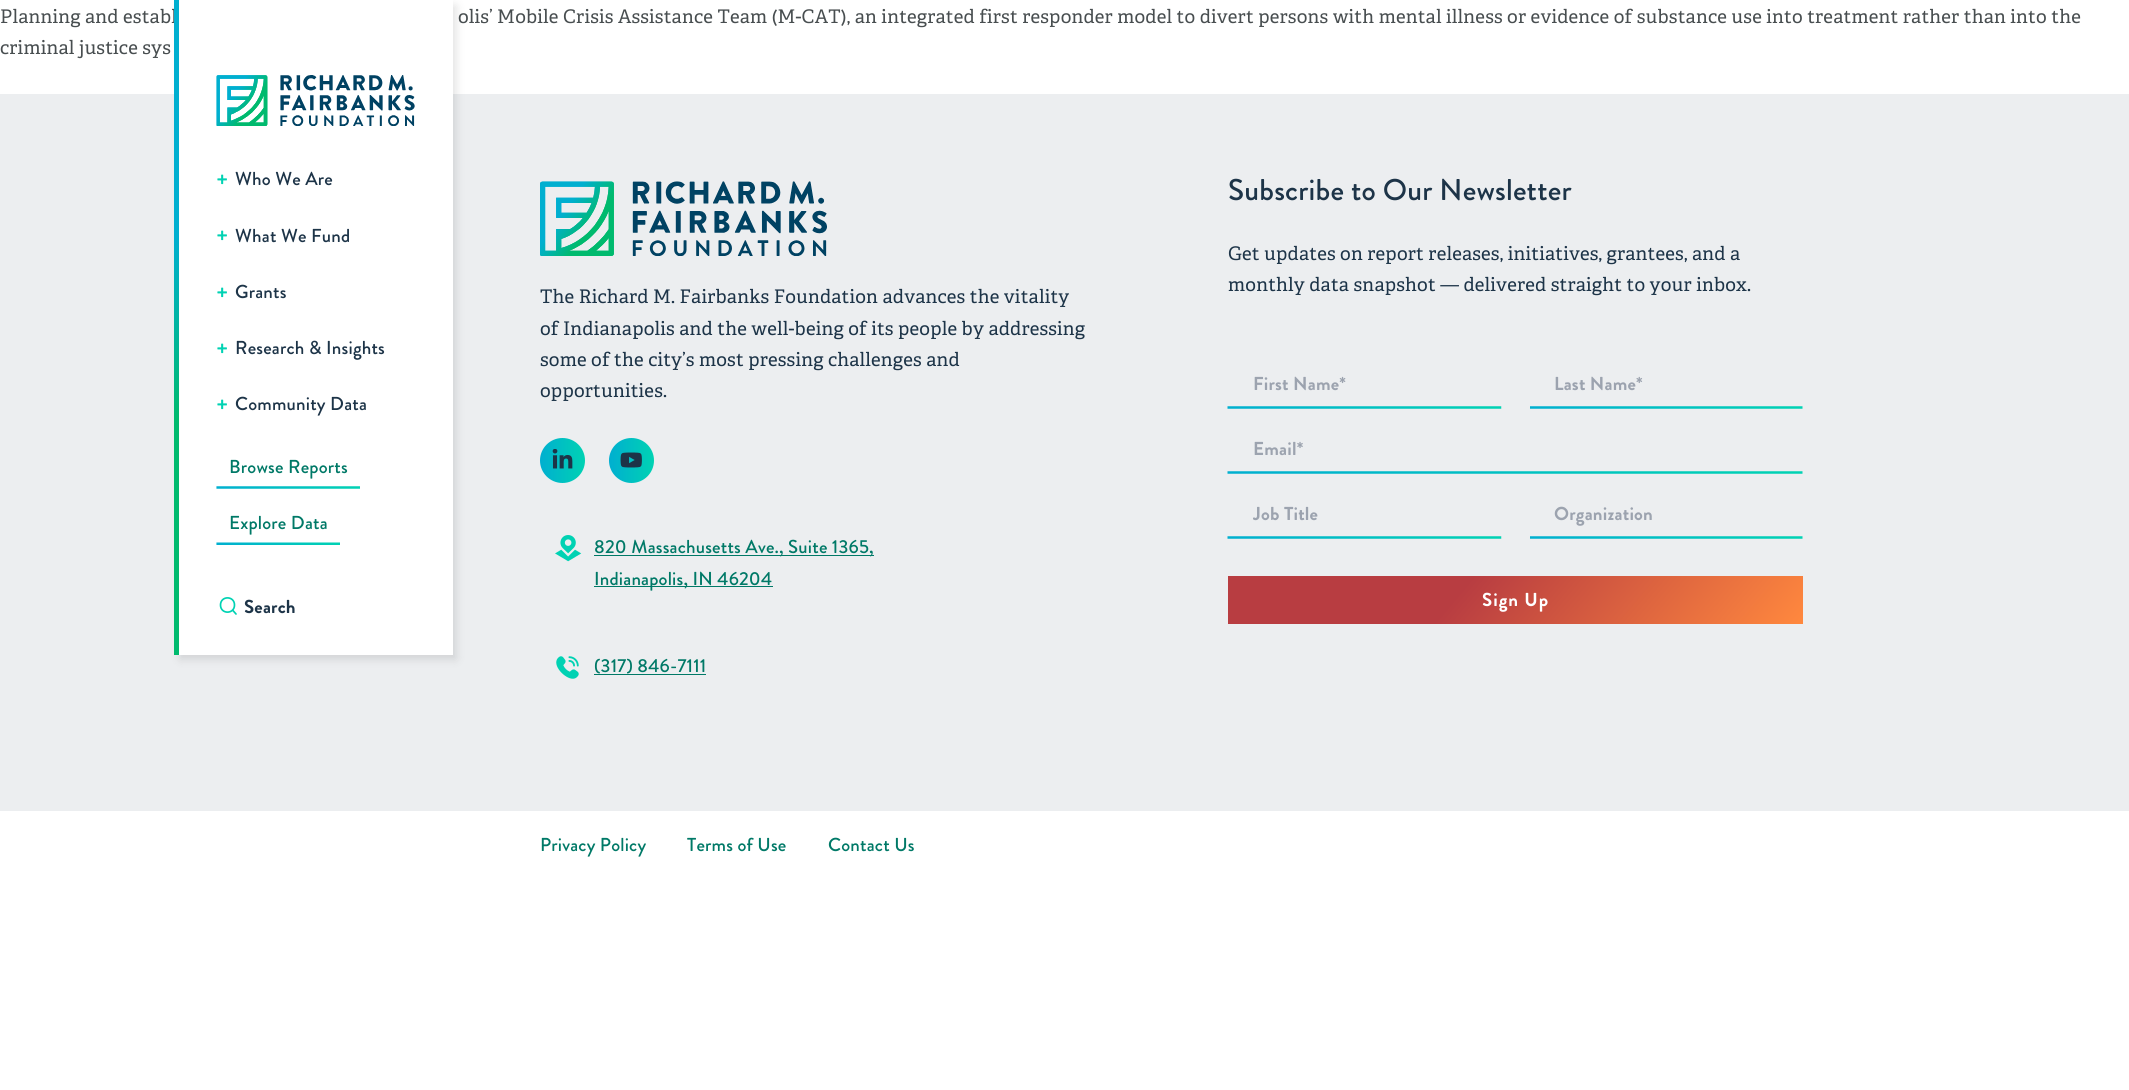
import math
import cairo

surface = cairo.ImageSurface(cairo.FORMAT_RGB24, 2129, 1090)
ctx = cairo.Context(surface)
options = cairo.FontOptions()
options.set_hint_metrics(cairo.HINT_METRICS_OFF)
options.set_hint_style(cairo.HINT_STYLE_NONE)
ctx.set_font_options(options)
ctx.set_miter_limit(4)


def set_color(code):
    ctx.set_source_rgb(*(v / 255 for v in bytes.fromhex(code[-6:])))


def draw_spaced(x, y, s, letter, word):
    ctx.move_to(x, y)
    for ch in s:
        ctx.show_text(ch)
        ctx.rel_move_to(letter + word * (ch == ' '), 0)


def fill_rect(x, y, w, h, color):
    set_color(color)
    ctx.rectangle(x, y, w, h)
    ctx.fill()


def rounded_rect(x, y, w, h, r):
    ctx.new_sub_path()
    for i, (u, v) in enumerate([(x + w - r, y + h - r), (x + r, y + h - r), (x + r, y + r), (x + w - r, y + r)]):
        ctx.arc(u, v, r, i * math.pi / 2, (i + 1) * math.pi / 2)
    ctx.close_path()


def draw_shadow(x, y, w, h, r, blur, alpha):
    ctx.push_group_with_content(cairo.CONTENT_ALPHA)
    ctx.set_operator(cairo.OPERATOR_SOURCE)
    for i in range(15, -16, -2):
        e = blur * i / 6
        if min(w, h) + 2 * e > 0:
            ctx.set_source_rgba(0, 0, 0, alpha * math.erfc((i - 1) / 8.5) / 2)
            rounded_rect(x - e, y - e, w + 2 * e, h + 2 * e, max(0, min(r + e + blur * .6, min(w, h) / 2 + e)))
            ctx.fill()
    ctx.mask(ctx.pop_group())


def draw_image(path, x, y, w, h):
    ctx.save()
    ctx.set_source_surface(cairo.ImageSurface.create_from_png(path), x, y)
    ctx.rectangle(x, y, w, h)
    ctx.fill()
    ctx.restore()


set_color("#ffffff")
ctx.paint()
ctx.select_font_face("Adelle")
ctx.set_font_size(18.75)
set_color("#484e50")
draw_spaced(0, 23, "Planning and establ", 0.19, 0)
draw_spaced(458, 23, "olis’ Mobile Crisis Assistance Team (M-CAT), an integrated first responder model to divert persons with mental illness or evidence of substance use into treatment rather than into the", 0.19, 0)
draw_spaced(0, 54, "criminal justice sys", 0.19, 0)
fill_rect(0, 94, 2129, 717, "#eceef0")
set_color("#000000")
draw_shadow(180, 6, 276, 653, 0, 5, 0.12)
fill_rect(179, 0, 274, 655, "#ffffff")
gradient = cairo.LinearGradient(22, 107, 331, 548)
gradient.add_color_stop_rgba(0.04, 0, 0.686, 0.816, 1)
gradient.add_color_stop_rgba(0.36, 0, 0.686, 0.816, 1)
gradient.add_color_stop_rgba(0.64, 0, 0.729, 0.431, 1)
gradient.add_color_stop_rgba(0.96, 0, 0.729, 0.431, 1)
ctx.set_source(gradient)
ctx.rectangle(174, 0, 5, 655)
ctx.fill()
draw_image("assets/img1.png", 216, 75, 199, 51)
ctx.select_font_face("Brandon Grotesque", cairo.FONT_SLANT_NORMAL, cairo.FONT_WEIGHT_BOLD)
ctx.set_font_size(22)
set_color("#00d2b3")
draw_spaced(216, 187, "+", 0.19, 0)
ctx.select_font_face("Brandon Grotesque Medium")
ctx.set_font_size(18.75)
set_color("#1d3448")
draw_spaced(235, 185, "Who We Are", 0.19, 0)
ctx.select_font_face("Brandon Grotesque", cairo.FONT_SLANT_NORMAL, cairo.FONT_WEIGHT_BOLD)
ctx.set_font_size(22)
set_color("#00d2b3")
draw_spaced(216, 243, "+", 0.19, 0)
ctx.select_font_face("Brandon Grotesque Medium")
ctx.set_font_size(18.75)
set_color("#1d3448")
draw_spaced(235, 242, "What We Fund", 0.19, 0)
ctx.select_font_face("Brandon Grotesque", cairo.FONT_SLANT_NORMAL, cairo.FONT_WEIGHT_BOLD)
ctx.set_font_size(22)
set_color("#00d2b3")
draw_spaced(216, 300, "+", 0.19, 0)
ctx.select_font_face("Brandon Grotesque Medium")
ctx.set_font_size(18.75)
set_color("#1d3448")
draw_spaced(235, 298, "Grants", 0.19, 0)
ctx.select_font_face("Brandon Grotesque", cairo.FONT_SLANT_NORMAL, cairo.FONT_WEIGHT_BOLD)
ctx.set_font_size(22)
set_color("#00d2b3")
draw_spaced(216, 356, "+", 0.19, 0)
ctx.select_font_face("Brandon Grotesque Medium")
ctx.set_font_size(18.75)
set_color("#1d3448")
draw_spaced(235, 354, "Research & Insights", 0.19, 0)
ctx.select_font_face("Brandon Grotesque", cairo.FONT_SLANT_NORMAL, cairo.FONT_WEIGHT_BOLD)
ctx.set_font_size(22)
set_color("#00d2b3")
draw_spaced(216, 412, "+", 0.19, 0)
ctx.select_font_face("Brandon Grotesque Medium")
ctx.set_font_size(18.75)
set_color("#1d3448")
draw_spaced(235, 410, "Community Data", 0.19, 0)
draw_image("assets/img2.png", 216, 486, 144, 3)
set_color("#007967")
draw_spaced(229, 473, "Browse Reports", 0.19, 0)
draw_image("assets/img3.png", 216, 542, 124, 3)
draw_spaced(229, 529, "Explore Data", 0.19, 0)
ctx.new_path()
ctx.move_to(236, 614)
ctx.line_to(232.5, 610)
ctx.close_path()
ctx.move_to(234.5, 605)
ctx.curve_to(234.5, 614.5, 220.5, 614.5, 220.5, 605)
ctx.curve_to(220.5, 595.5, 234.5, 595.5, 234.5, 605)
ctx.close_path()
set_color("#00d2b3")
ctx.set_line_width(1.7)
ctx.set_line_cap(cairo.LINE_CAP_ROUND)
ctx.set_line_join(cairo.LINE_JOIN_ROUND)
ctx.stroke()
ctx.select_font_face("Brandon Grotesque", cairo.FONT_SLANT_NORMAL, cairo.FONT_WEIGHT_BOLD)
set_color("#1d3448")
draw_spaced(244, 613, "Search", 0.19, 0)
draw_image("assets/img4.png", 540, 181, 287, 75)
ctx.select_font_face("Adelle")
draw_spaced(540, 303, "The Richard M. Fairbanks Foundation advances the vitality", 0.19, 0)
draw_spaced(540, 335, "of Indianapolis and the well-being of its people by addressing", 0.19, 0)
draw_spaced(540, 366, "some of the city’s most pressing challenges and", 0.19, 0)
draw_spaced(540, 397, "opportunities.", 0.19, 0)
gradient = cairo.LinearGradient(540, 460, 585, 460)
gradient.add_color_stop_rgba(0, 0, 0.686, 0.816, 1)
gradient.add_color_stop_rgba(1, 0, 0.824, 0.702, 1)
ctx.set_source(gradient)
ctx.new_path()
ctx.arc(562.5, 460.5, 22.5, 0, 2 * math.pi)
ctx.fill()
draw_image("assets/img5.png", 552, 449, 21, 20)
gradient = cairo.LinearGradient(609, 460, 654, 460)
gradient.add_color_stop_rgba(0, 0, 0.686, 0.816, 1)
gradient.add_color_stop_rgba(1, 0, 0.824, 0.702, 1)
ctx.set_source(gradient)
ctx.arc(631.5, 460.5, 22.5, 0, 2 * math.pi)
ctx.fill()
draw_image("assets/img6.png", 620, 452, 22, 16)
draw_image("assets/img7.png", 555, 535, 27, 27)
fill_rect(594, 555, 280, 1, "#007967")
ctx.select_font_face("Brandon Grotesque Medium")
draw_spaced(594, 553, "820 Massachusetts Ave., Suite 1365,", 0.19, 0)
fill_rect(594, 586, 179, 1, "#007967")
draw_spaced(594, 585, "Indianapolis, IN 46204", 0.19, 0)
draw_image("assets/img8.png", 556, 656, 23, 23)
draw_spaced(594, 672, "(317) 846-7111", 0.19, 0)
fill_rect(594, 674, 112, 1, "#007967")
ctx.set_font_size(30)
set_color("#1d3448")
draw_spaced(1228, 200, "Subscribe to Our Newsletter", 0.19, 0)
ctx.select_font_face("Adelle")
ctx.set_font_size(18.75)
draw_spaced(1228, 260, "Get updates on report releases, initiatives, grantees, and a", 0.19, 0)
draw_spaced(1228, 291, "monthly data snapshot — delivered straight to your inbox.", 0.19, 0)
draw_image("assets/img9.png", 1227, 406, 275, 3)
ctx.select_font_face("Brandon Grotesque", cairo.FONT_SLANT_NORMAL, cairo.FONT_WEIGHT_BOLD)
set_color("#9ca3af")
draw_spaced(1253, 390, "First Name*", 0.19, 0)
draw_image("assets/img10.png", 1530, 406, 273, 3)
draw_spaced(1554, 390, "Last Name*", 0.19, 0)
draw_image("assets/img11.png", 1227, 471, 576, 3)
draw_spaced(1253, 455, "Email*", 0.19, 0)
draw_image("assets/img12.png", 1227, 536, 275, 3)
ctx.save()
ctx.rectangle(1253, 500, 223, 28)
ctx.clip()
draw_spaced(1253, 520, "Job Title", 0.19, 0)
ctx.restore()
draw_image("assets/img13.png", 1530, 536, 273, 3)
draw_spaced(1554, 520, "Organization", 0.19, 0)
gradient = cairo.LinearGradient(1335, 449, 1695, 751)
gradient.add_color_stop_rgba(0.4, 0.722, 0.239, 0.255, 1)
gradient.add_color_stop_rgba(1, 1, 0.533, 0.243, 1)
ctx.set_source(gradient)
ctx.rectangle(1228, 576, 575, 48)
ctx.fill()
set_color("#ffffff")
draw_spaced(1482, 606, "Sign Up", 1, 0)
ctx.select_font_face("Brandon Grotesque Medium")
set_color("#007967")
draw_spaced(540, 851, "Privacy Policy", 0.19, 0)
draw_spaced(687, 851, "Terms of Use", 0.19, 0)
draw_spaced(828, 851, "Contact Us", 0.19, 0)
surface.write_to_png("output.png")
